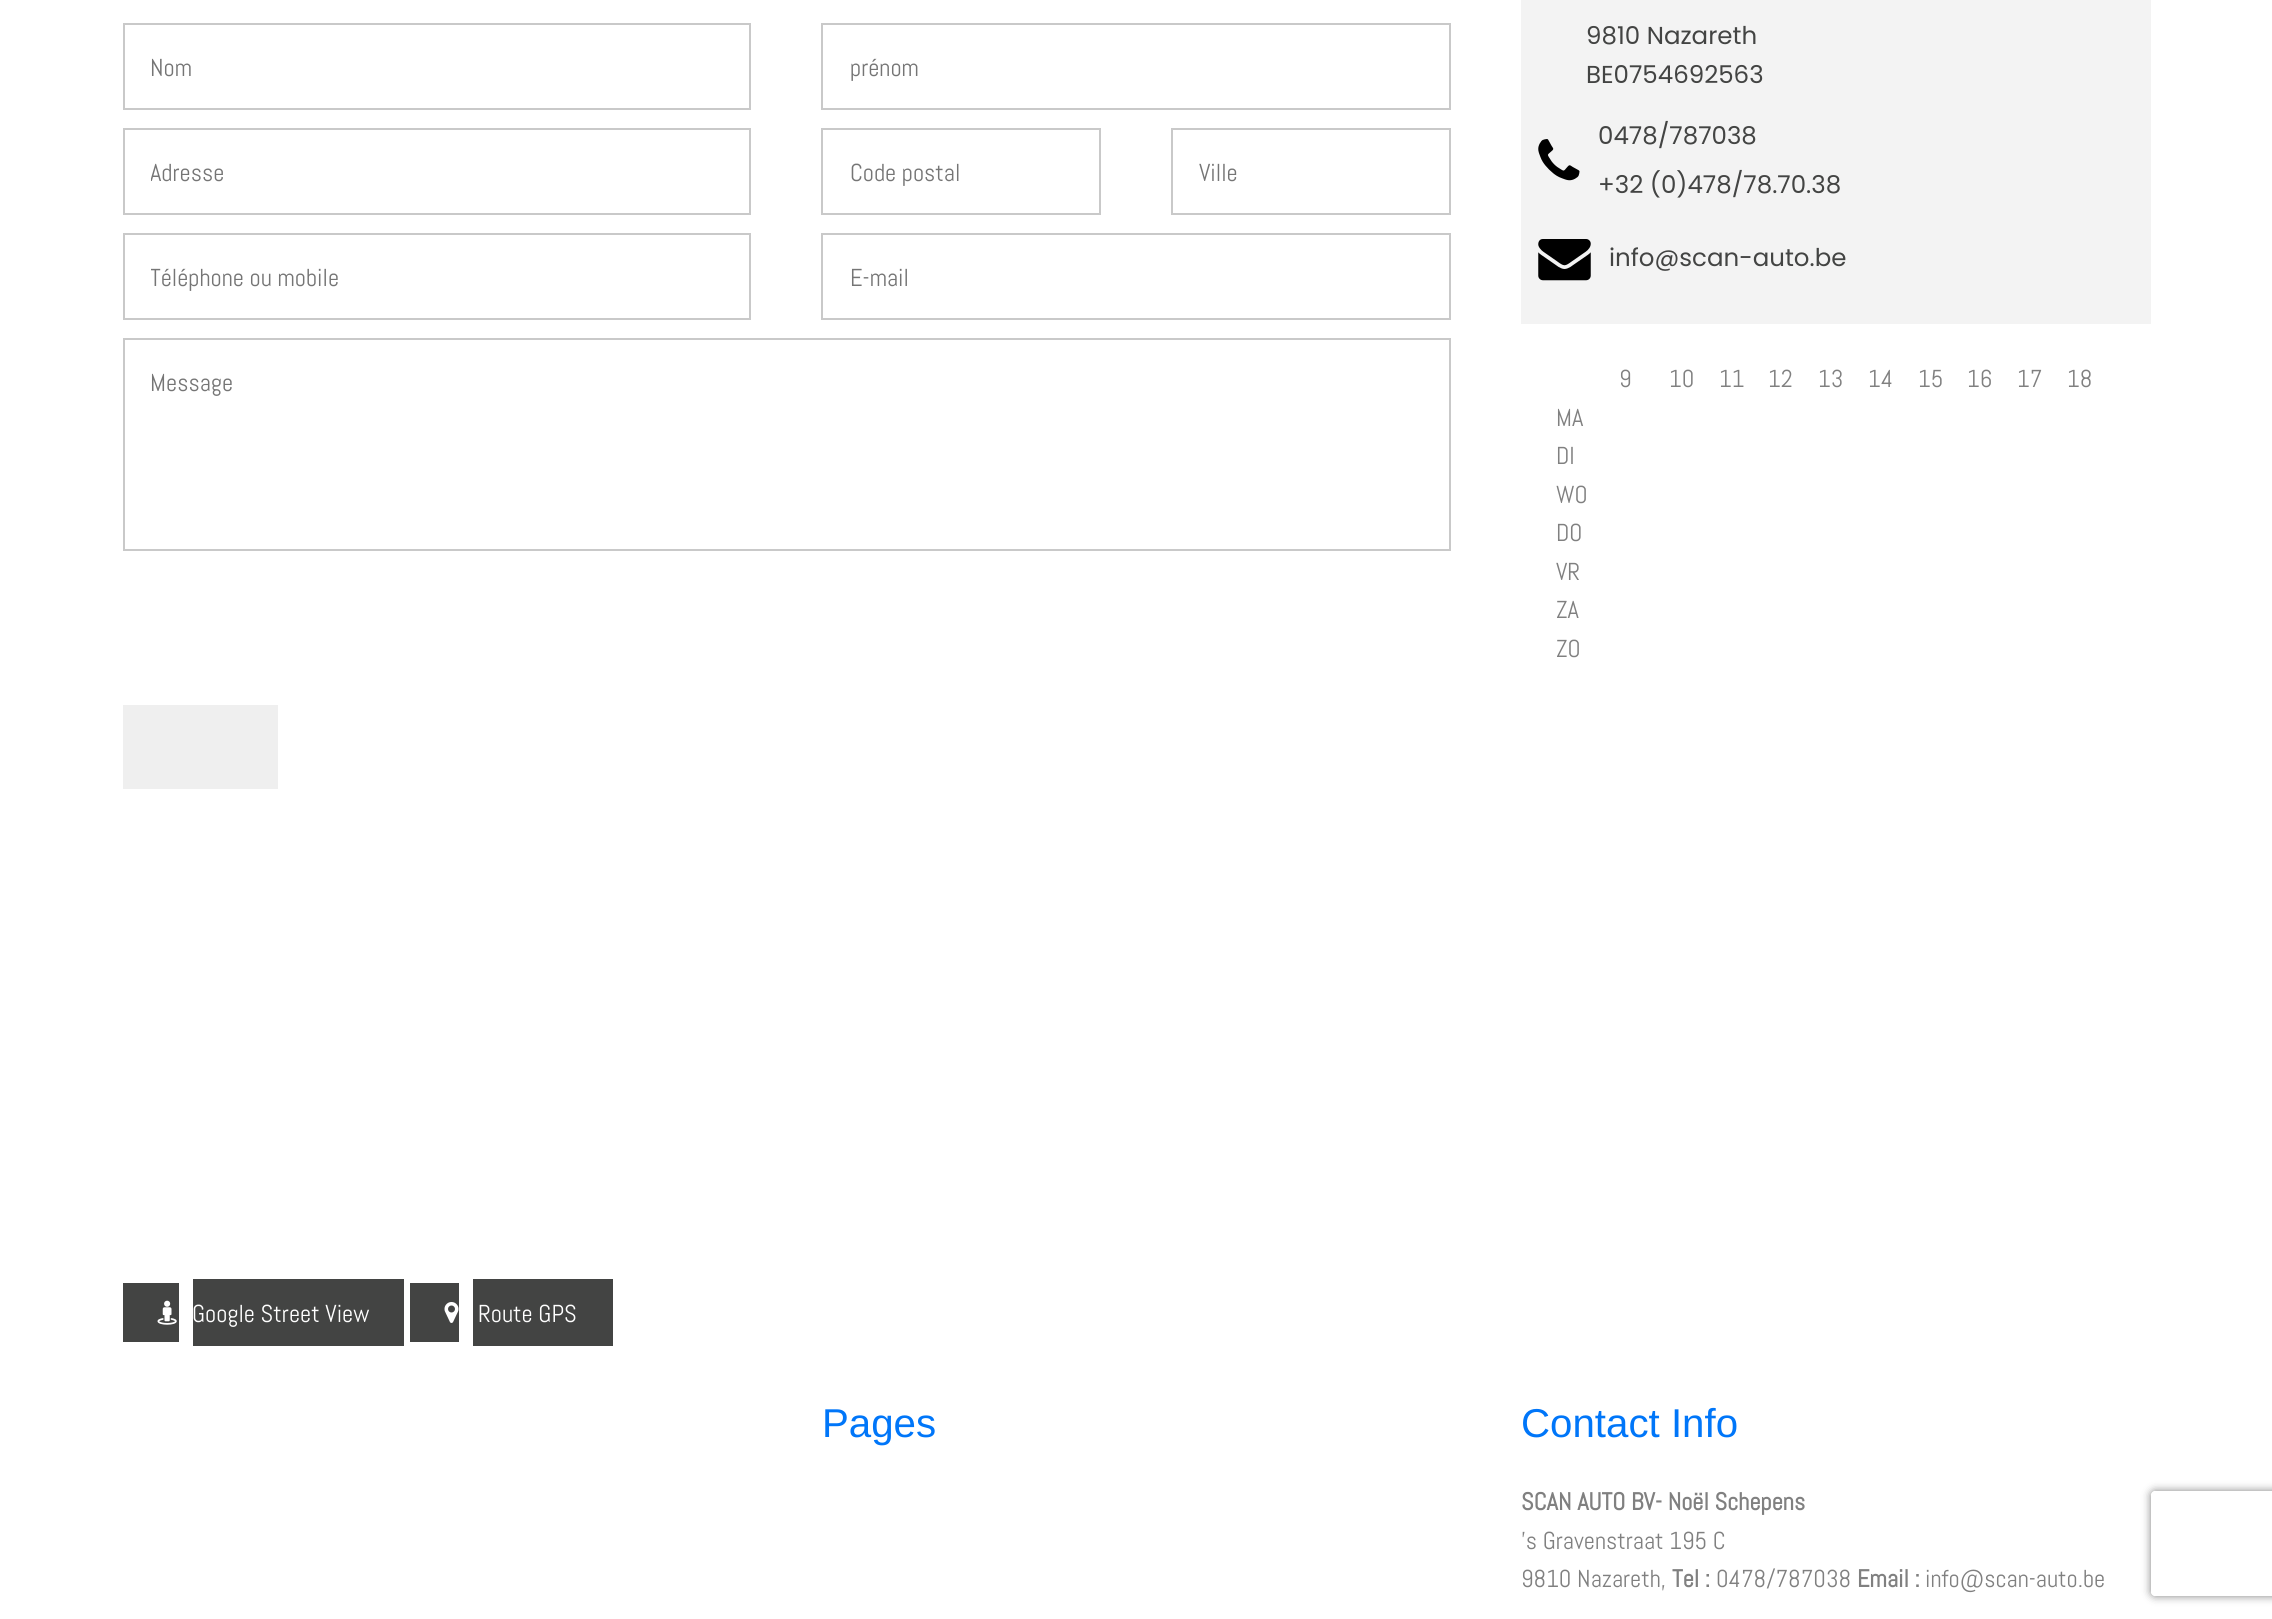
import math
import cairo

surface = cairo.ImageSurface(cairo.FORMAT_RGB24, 2272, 1619)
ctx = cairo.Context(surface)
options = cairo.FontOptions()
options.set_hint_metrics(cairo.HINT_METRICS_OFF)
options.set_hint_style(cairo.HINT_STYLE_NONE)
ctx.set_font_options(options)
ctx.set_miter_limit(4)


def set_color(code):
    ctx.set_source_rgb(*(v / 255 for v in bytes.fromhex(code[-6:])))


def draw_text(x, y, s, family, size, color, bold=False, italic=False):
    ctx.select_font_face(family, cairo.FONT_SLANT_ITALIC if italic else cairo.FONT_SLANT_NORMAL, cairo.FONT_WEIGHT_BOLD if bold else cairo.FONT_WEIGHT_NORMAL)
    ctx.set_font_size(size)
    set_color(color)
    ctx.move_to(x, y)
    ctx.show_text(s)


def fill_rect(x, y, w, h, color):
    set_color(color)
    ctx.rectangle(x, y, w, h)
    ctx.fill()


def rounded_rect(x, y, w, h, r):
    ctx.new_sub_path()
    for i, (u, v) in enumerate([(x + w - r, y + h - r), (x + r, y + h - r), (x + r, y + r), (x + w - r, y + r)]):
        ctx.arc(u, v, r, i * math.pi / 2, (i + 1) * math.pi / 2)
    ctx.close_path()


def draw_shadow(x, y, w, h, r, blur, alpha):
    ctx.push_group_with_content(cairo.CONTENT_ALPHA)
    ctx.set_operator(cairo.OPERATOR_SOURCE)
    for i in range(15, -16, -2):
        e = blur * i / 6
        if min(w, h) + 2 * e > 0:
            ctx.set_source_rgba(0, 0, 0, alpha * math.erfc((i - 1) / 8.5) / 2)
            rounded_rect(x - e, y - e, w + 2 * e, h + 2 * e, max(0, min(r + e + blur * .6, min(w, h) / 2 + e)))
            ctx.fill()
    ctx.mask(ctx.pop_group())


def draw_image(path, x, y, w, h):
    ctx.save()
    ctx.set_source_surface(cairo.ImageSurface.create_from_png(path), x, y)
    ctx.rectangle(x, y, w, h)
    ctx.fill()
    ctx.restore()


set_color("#ffffff")
ctx.paint()
ctx.rectangle(124, 24, 626, 85)
set_color("#c9c9c9")
ctx.stroke()
draw_text(150, 76, "Nom", "Abel", 24.5, "#757575")
ctx.rectangle(822, 24, 628, 85)
set_color("#c9c9c9")
ctx.stroke()
draw_text(850, 76, "prénom", "Abel", 24.5, "#757575")
ctx.rectangle(124, 129, 626, 85)
set_color("#c9c9c9")
ctx.stroke()
ctx.save()
ctx.rectangle(151, 156, 572, 31)
ctx.clip()
draw_text(150, 181, "Adresse", "Abel", 24.5, "#757575")
ctx.restore()
ctx.rectangle(822, 129, 278, 85)
ctx.stroke()
draw_text(850, 181, "Code postal", "Abel", 24.5, "#757575")
ctx.rectangle(1172, 129, 278, 85)
set_color("#c9c9c9")
ctx.stroke()
draw_text(1199, 181, "Ville", "Abel", 24.5, "#757575")
ctx.rectangle(124, 234, 626, 85)
set_color("#c9c9c9")
ctx.stroke()
ctx.save()
ctx.rectangle(151, 261, 572, 31)
ctx.clip()
draw_text(150, 286, "Téléphone ou mobile", "Abel", 24.5, "#757575")
ctx.restore()
ctx.rectangle(822, 234, 628, 85)
ctx.stroke()
draw_text(850, 286, "E-mail", "Abel", 24.5, "#757575")
ctx.rectangle(124, 339, 1326, 211)
set_color("#c9c9c9")
ctx.stroke()
draw_text(150, 391, "Message", "Abel", 24.5, "#757575")
fill_rect(123, 705, 155, 84, "#efefef")
fill_rect(123, 1283, 56, 59, "#434443")
fill_rect(193, 1279, 211, 67, "#434443")
draw_image("assets/img1.png", 157, 1300, 20, 25)
draw_text(192, 1322, "Google Street View", "Abel", 24.5, "#ffffff")
fill_rect(410, 1283, 49, 59, "#434443")
fill_rect(473, 1279, 140, 67, "#434443")
draw_image("assets/img2.png", 444, 1302, 15, 21)
draw_text(478, 1322, "Route GPS", "Abel", 24.5, "#ffffff")
fill_rect(1521, 0, 630, 324, "#f3f3f3")
draw_text(1586, 44, "9810 Nazareth", "Poppins", 24.5, "#434443")
draw_text(1586, 83, "BE0754692563", "Poppins", 24.5, "#434443")
draw_image("assets/img3.png", 1538, 139, 42, 42)
draw_text(1598, 144, "0478/787038", "Poppins", 24.5, "#434443")
draw_text(1598, 193, "+32 (0)478/78.70.38", "Poppins", 24.5, "#434443")
draw_image("assets/img4.png", 1538, 239, 53, 42)
draw_text(1609, 266, "info@scan-auto.be", "Poppins", 24.5, "#434443")
draw_text(1619, 387, "9", "Abel", 24.5, "#808080")
draw_text(1669, 387, "10", "Abel", 24.5, "#808080")
draw_text(1719, 387, "11", "Abel", 24.5, "#808080")
draw_text(1768, 387, "12", "Abel", 24.5, "#808080")
draw_text(1818, 387, "13", "Abel", 24.5, "#808080")
draw_text(1868, 387, "14", "Abel", 24.5, "#808080")
draw_text(1918, 387, "15", "Abel", 24.5, "#808080")
draw_text(1967, 387, "16", "Abel", 24.5, "#808080")
draw_text(2017, 387, "17", "Abel", 24.5, "#808080")
draw_text(2067, 387, "18", "Abel", 24.5, "#808080")
draw_text(1556, 426, "MA", "Abel", 24.5, "#808080")
draw_text(1556, 464, "DI", "Abel", 24.5, "#808080")
draw_text(1556, 503, "WO", "Abel", 24.5, "#808080")
draw_text(1556, 541, "DO", "Abel", 24.5, "#808080")
draw_text(1556, 580, "VR", "Abel", 24.5, "#808080")
draw_text(1556, 618, "ZA", "Abel", 24.5, "#808080")
draw_text(1556, 657, "ZO", "Abel", 24.5, "#808080")
draw_text(822, 1437, "Pages", "Liberation Sans", 40.25, "#0076f9")
draw_text(1521, 1437, "Contact Info", "Liberation Sans", 40.25, "#0076f9")
draw_text(1521, 1510, "SCAN AUTO BV- Noël Schepens", "Abel", 24.5, "#808080", bold=True)
draw_text(1521, 1549, "'s Gravenstraat 195 C", "Abel", 24.5, "#808080")
draw_text(1521, 1587, "9810 Nazareth,", "Abel", 24.5, "#808080")
draw_text(1672, 1587, "Tel :", "Abel", 24.5, "#808080", bold=True)
draw_text(1716, 1587, "0478/787038", "Abel", 24.5, "#808080")
draw_text(1857, 1587, "Email :", "Abel", 24.5, "#808080", bold=True)
draw_text(1925, 1587, "info@scan-auto.be", "Abel", 24.5, "#808080")
ctx.save()
ctx.set_fill_rule(cairo.FILL_RULE_EVEN_ODD)
ctx.new_path()
ctx.move_to(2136, 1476)
ctx.line_to(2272, 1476)
ctx.line_to(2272, 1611)
ctx.line_to(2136, 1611)
ctx.close_path()
ctx.move_to(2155, 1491)
ctx.line_to(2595, 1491)
ctx.curve_to(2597, 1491, 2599, 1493, 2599, 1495)
ctx.line_to(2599, 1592)
ctx.curve_to(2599, 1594, 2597, 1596, 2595, 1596)
ctx.line_to(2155, 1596)
ctx.curve_to(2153, 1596, 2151, 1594, 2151, 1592)
ctx.line_to(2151, 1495)
ctx.curve_to(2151, 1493, 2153, 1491, 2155, 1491)
ctx.close_path()
ctx.clip()
set_color("#808080")
draw_shadow(2151, 1491, 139, 105, 4, 4.5, 1)
ctx.restore()
surface.write_to_png("output.png")
